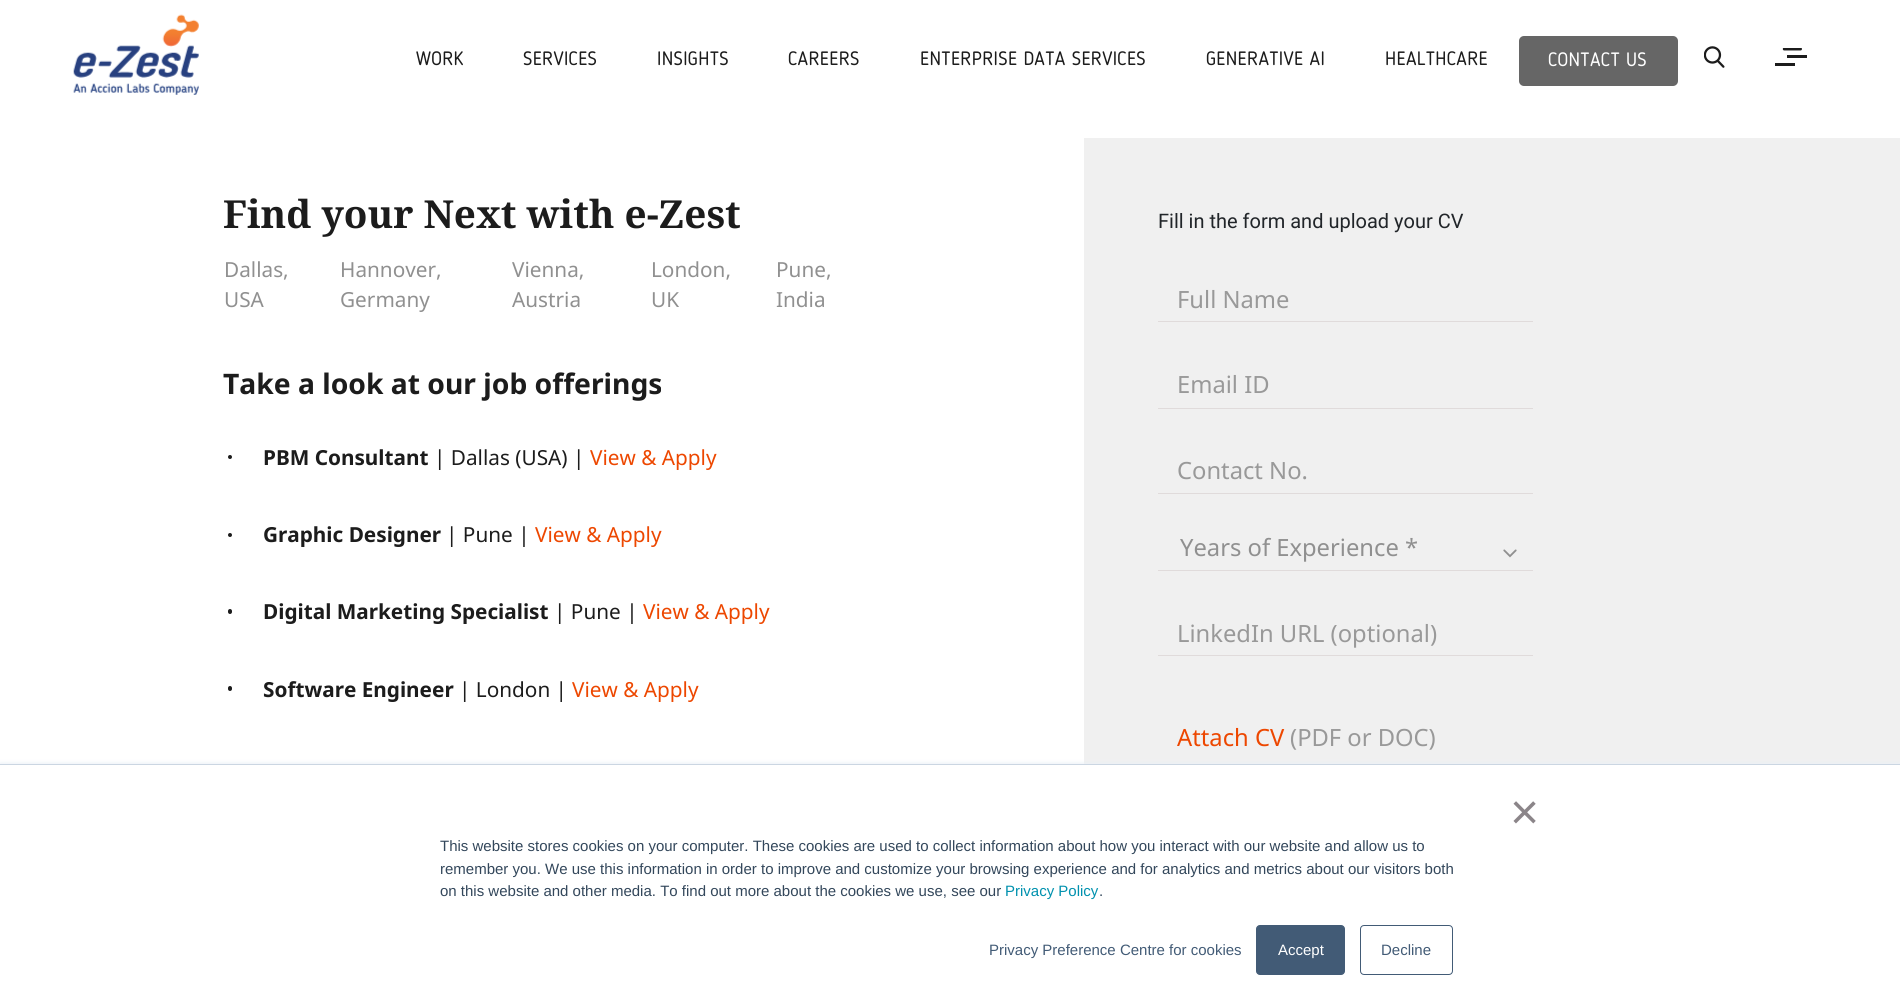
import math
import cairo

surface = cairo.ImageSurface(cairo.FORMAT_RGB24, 1900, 1007)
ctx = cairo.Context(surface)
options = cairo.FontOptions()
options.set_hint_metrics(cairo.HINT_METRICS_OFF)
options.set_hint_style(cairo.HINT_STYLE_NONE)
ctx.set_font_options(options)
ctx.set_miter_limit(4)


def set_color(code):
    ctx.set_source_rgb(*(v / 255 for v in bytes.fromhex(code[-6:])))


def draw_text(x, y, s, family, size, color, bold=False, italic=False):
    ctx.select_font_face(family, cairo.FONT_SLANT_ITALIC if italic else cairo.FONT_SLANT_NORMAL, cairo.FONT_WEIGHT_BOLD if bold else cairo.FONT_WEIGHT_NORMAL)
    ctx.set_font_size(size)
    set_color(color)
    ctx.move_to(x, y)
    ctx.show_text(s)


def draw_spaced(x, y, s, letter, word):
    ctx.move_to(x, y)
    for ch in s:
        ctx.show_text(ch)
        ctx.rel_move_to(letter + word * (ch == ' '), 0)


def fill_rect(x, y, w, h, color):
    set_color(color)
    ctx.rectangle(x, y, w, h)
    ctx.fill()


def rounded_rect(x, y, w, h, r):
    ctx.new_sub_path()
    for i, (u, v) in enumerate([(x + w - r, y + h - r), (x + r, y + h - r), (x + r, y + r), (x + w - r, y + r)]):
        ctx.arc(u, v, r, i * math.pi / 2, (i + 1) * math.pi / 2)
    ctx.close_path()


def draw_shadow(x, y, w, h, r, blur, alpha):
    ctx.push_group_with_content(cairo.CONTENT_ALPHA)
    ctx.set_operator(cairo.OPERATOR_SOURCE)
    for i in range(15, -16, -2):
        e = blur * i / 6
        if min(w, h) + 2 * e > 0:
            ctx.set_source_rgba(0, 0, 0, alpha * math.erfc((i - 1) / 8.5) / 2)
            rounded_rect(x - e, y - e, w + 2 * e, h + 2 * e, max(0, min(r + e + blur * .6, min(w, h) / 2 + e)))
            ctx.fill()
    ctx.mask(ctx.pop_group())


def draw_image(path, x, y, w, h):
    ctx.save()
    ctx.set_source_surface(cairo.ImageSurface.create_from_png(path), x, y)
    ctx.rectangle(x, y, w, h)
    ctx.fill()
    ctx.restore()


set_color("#ffffff")
ctx.paint()
draw_image("assets/img1.png", 73, 14, 126, 81)
ctx.select_font_face("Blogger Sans")
ctx.set_font_size(19.25)
set_color("#1c1c1c")
draw_spaced(416, 65, "WORK", 0.3, 0)
draw_spaced(523, 65, "SERVICES", 0.3, 0)
draw_spaced(657, 65, "INSIGHTS", 0.3, 0)
draw_spaced(788, 65, "CAREERS", 0.3, 0)
draw_spaced(920, 65, "ENTERPRISE DATA SERVICES", 0.3, 0)
draw_spaced(1206, 65, "GENERATIVE AI", 0.3, 0)
draw_spaced(1385, 65, "HEALTHCARE", 0.3, 0)
set_color("#666666")
rounded_rect(1519, 36, 159, 50, 5)
ctx.fill()
set_color("#ffffff")
draw_spaced(1548, 66, "CONTACT US", 0.3, 0)
draw_image("assets/img2.png", 1704, 46, 21, 22)
draw_image("assets/img3.png", 1782, 48, 20, 3)
fill_rect(1787, 55, 20, 3, "#1c1c1c")
fill_rect(1775, 63, 20, 3, "#1c1c1c")
draw_text(223, 228, "Find your Next with e-Zest", "Noto Serif", 38.6, "#1c1c1c", bold=True)
draw_text(224, 277, "Dallas,", "Noto Sans", 20.75, "#909090")
draw_text(224, 307, "USA", "Noto Sans", 20.75, "#909090")
draw_text(340, 277, "Hannover,", "Noto Sans", 20.75, "#909090")
draw_text(340, 307, "Germany", "Noto Sans", 20.75, "#909090")
draw_text(512, 277, "Vienna,", "Noto Sans", 20.75, "#909090")
draw_text(512, 307, "Austria", "Noto Sans", 20.75, "#909090")
draw_text(651, 277, "London,", "Noto Sans", 20.75, "#909090")
draw_text(651, 307, "UK", "Noto Sans", 20.75, "#909090")
draw_text(776, 277, "Pune,", "Noto Sans", 20.75, "#909090")
draw_text(776, 307, "India", "Noto Sans", 20.75, "#909090")
draw_text(223, 394, "Take a look at our job offerings", "Noto Sans", 28.25, "#1c1c1c", bold=True)
ctx.new_path()
ctx.arc(230, 457, 2, 0, 2 * math.pi)
ctx.fill()
draw_text(263, 465, "PBM Consultant", "Noto Sans", 20.75, "#1c1c1c", bold=True)
draw_text(434, 465, "| Dallas (USA) |", "Noto Sans", 20.75, "#1c1c1c")
draw_text(590, 465, "View & Apply", "Noto Sans", 20.75, "#ed4700")
set_color("#1c1c1c")
ctx.new_path()
ctx.arc(230, 535, 2, 0, 2 * math.pi)
ctx.fill()
draw_text(263, 542, "Graphic Designer", "Noto Sans", 20.75, "#1c1c1c", bold=True)
draw_text(446, 542, "| Pune |", "Noto Sans", 20.75, "#1c1c1c")
draw_text(535, 542, "View & Apply", "Noto Sans", 20.75, "#ed4700")
set_color("#1c1c1c")
rounded_rect(228, 609, 4, 5, 2)
ctx.fill()
draw_text(263, 619, "Digital Marketing Specialist", "Noto Sans", 20.75, "#1c1c1c", bold=True)
draw_text(554, 619, "| Pune |", "Noto Sans", 20.75, "#1c1c1c")
draw_text(643, 619, "View & Apply", "Noto Sans", 20.75, "#ed4700")
set_color("#1c1c1c")
rounded_rect(228, 686, 4, 5, 2)
ctx.fill()
draw_text(263, 697, "Software Engineer", "Noto Sans", 20.75, "#1c1c1c", bold=True)
draw_text(459, 697, "| London |", "Noto Sans", 20.75, "#1c1c1c")
draw_text(572, 697, "View & Apply", "Noto Sans", 20.75, "#ed4700")
fill_rect(1084, 138, 816, 626, "#f0f0f0")
draw_text(1158, 228, "Fill in the form and upload your CV", "Roboto", 20, "#212529")
draw_text(1177, 308, "Full Name", "Noto Sans", 23.75, "#999999")
fill_rect(1158, 321, 375, 1, "#e0dbdb")
draw_text(1177, 393, "Email ID", "Noto Sans", 23.75, "#999999")
fill_rect(1158, 408, 375, 1, "#e0dbdb")
draw_text(1177, 479, "Contact No.", "Noto Sans", 23.75, "#999999")
fill_rect(1158, 493, 375, 1, "#e0dbdb")
draw_image("assets/img4.png", 1503, 549, 14, 9)
fill_rect(1158, 570, 375, 1, "#e0dbdb")
draw_text(1180, 556, "Years of Experience *", "Noto Sans", 23.75, "#909090")
draw_text(1177, 642, "LinkedIn URL (optional)", "Noto Sans", 23.75, "#999999")
fill_rect(1158, 655, 375, 1, "#e0dbdb")
draw_text(1177, 746, "Attach CV", "Noto Sans", 23.75, "#ed4700")
draw_text(1290, 746, "(PDF or DOC)", "Noto Sans", 23.75, "#999999")
set_color("#eaf0f6")
draw_shadow(0, 763, 1900, 243, 0, 2, 1)
fill_rect(0, 765, 1900, 242, "#ffffff")
fill_rect(0, 764, 1900, 1, "#cbd6e2")
draw_text(1510, 829, "×", "Liberation Sans", 50, "#8b8589")
draw_text(440, 851, "This website stores cookies on your computer. These cookies are used to collect information about how you interact with our website and allow us to", "Liberation Sans", 15, "#33475b")
draw_text(440, 874, "remember you. We use this information in order to improve and customize your browsing experience and for analytics and metrics about our visitors both", "Liberation Sans", 15, "#33475b")
draw_text(440, 896, "on this website and other media. To find out more about the cookies we use, see our", "Liberation Sans", 15, "#33475b")
draw_text(1005, 896, "Privacy Policy", "Liberation Sans", 15, "#0091ae")
draw_text(1099, 896, ".", "Liberation Sans", 15, "#33475b")
draw_text(989, 955, "Privacy Preference Centre for cookies", "Liberation Sans", 15, "#425b76")
rounded_rect(1256.5, 925.5, 88, 49, 3.5)
ctx.fill_preserve()
ctx.set_line_width(1)
ctx.stroke()
draw_text(1278, 955, "Accept", "Liberation Sans", 15, "#ffffff")
rounded_rect(1360.5, 925.5, 92, 49, 3.5)
set_color("#425b76")
ctx.stroke()
draw_text(1381, 955, "Decline", "Liberation Sans", 15, "#425b76")
surface.write_to_png("output.png")
